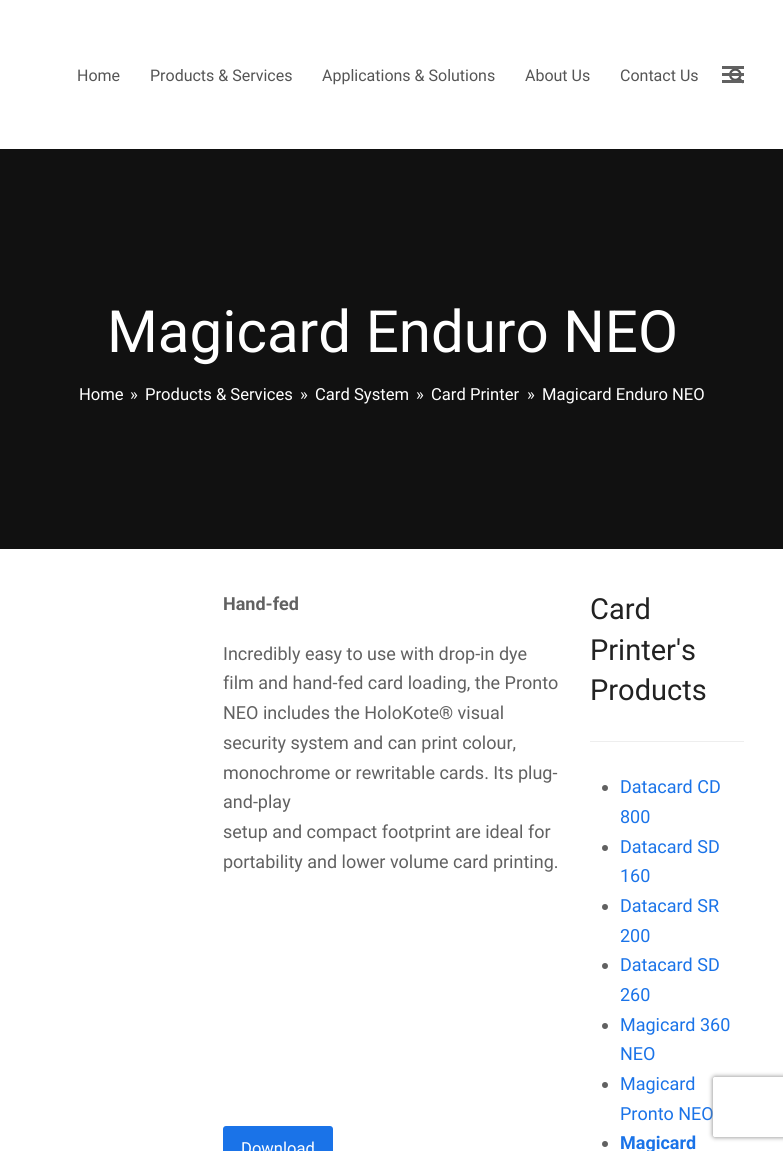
import math
import cairo

surface = cairo.ImageSurface(cairo.FORMAT_RGB24, 783, 1151)
ctx = cairo.Context(surface)
options = cairo.FontOptions()
options.set_hint_metrics(cairo.HINT_METRICS_OFF)
options.set_hint_style(cairo.HINT_STYLE_NONE)
ctx.set_font_options(options)
ctx.set_miter_limit(4)


def set_color(code):
    ctx.set_source_rgb(*(v / 255 for v in bytes.fromhex(code[-6:])))


def draw_text(x, y, s, family, size, color, bold=False, italic=False):
    ctx.select_font_face(family, cairo.FONT_SLANT_ITALIC if italic else cairo.FONT_SLANT_NORMAL, cairo.FONT_WEIGHT_BOLD if bold else cairo.FONT_WEIGHT_NORMAL)
    ctx.set_font_size(size)
    set_color(color)
    ctx.move_to(x, y)
    ctx.show_text(s)


def fill_rect(x, y, w, h, color):
    set_color(color)
    ctx.rectangle(x, y, w, h)
    ctx.fill()


def rounded_rect(x, y, w, h, r):
    ctx.new_sub_path()
    for i, (u, v) in enumerate([(x + w - r, y + h - r), (x + r, y + h - r), (x + r, y + r), (x + w - r, y + r)]):
        ctx.arc(u, v, r, i * math.pi / 2, (i + 1) * math.pi / 2)
    ctx.close_path()


def draw_shadow(x, y, w, h, r, blur, alpha):
    ctx.push_group_with_content(cairo.CONTENT_ALPHA)
    ctx.set_operator(cairo.OPERATOR_SOURCE)
    for i in range(15, -16, -2):
        e = blur * i / 6
        if min(w, h) + 2 * e > 0:
            ctx.set_source_rgba(0, 0, 0, alpha * math.erfc((i - 1) / 8.5) / 2)
            rounded_rect(x - e, y - e, w + 2 * e, h + 2 * e, max(0, min(r + e + blur * .6, min(w, h) / 2 + e)))
            ctx.fill()
    ctx.mask(ctx.pop_group())


def draw_image(path, x, y, w, h):
    ctx.save()
    ctx.set_source_surface(cairo.ImageSurface.create_from_png(path), x, y)
    ctx.rectangle(x, y, w, h)
    ctx.fill()
    ctx.restore()


set_color("#ffffff")
ctx.paint()
draw_text(77, 81, "Home", "Roboto", 16, "#555555")
draw_text(150, 81, "Products & Services", "Roboto", 16, "#555555")
draw_text(322, 81, "Applications & Solutions", "Roboto", 16, "#555555")
draw_text(525, 81, "About Us", "Roboto", 16, "#555555")
draw_text(620, 81, "Contact Us", "Roboto", 16, "#555555")
draw_image("assets/img1.png", 729, 69, 15, 15)
fill_rect(722, 73, 22, 3, "#616161")
fill_rect(722, 66, 22, 3, "#616161")
fill_rect(722, 80, 22, 3, "#616161")
fill_rect(0, 149, 783, 400, "#111111")
draw_text(107, 352, "Magicard Enduro NEO", "Roboto", 58.25, "#ffffff")
draw_text(79, 400, "Home", "Roboto", 16.6, "#ffffff")
draw_text(130, 400, "»", "Roboto", 16.6, "#ffffff")
draw_text(145, 400, "Products & Services", "Roboto", 16.6, "#ffffff")
draw_text(300, 400, "»", "Roboto", 16.6, "#ffffff")
draw_text(315, 400, "Card System", "Roboto", 16.6, "#ffffff")
draw_text(416, 400, "»", "Roboto", 16.6, "#ffffff")
draw_text(431, 400, "Card Printer", "Roboto", 16.6, "#ffffff")
draw_text(527, 400, "»", "Roboto", 16.6, "#ffffff")
draw_text(542, 400, "Magicard Enduro NEO", "Roboto", 16.6, "#ffffff")
draw_text(223, 610, "Hand-fed", "Roboto", 18, "#616161", bold=True)
draw_text(223, 660, "Incredibly easy to use with drop-in dye", "Roboto", 18, "#616161")
draw_text(223, 689, "film and hand-fed card loading, the Pronto", "Roboto", 18, "#616161")
draw_text(223, 719, "NEO includes the HoloKote® visual", "Roboto", 18, "#616161")
draw_text(223, 749, "security system and can print colour,", "Roboto", 18, "#616161")
draw_text(223, 779, "monochrome or rewritable cards. Its plug-", "Roboto", 18, "#616161")
draw_text(223, 808, "and-play", "Roboto", 18, "#616161")
draw_text(223, 838, "setup and compact footprint are ideal for", "Roboto", 18, "#616161")
draw_text(223, 868, "portability and lower volume card printing.", "Roboto", 18, "#616161")
set_color("#1a73e8")
rounded_rect(223, 1126, 110, 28, 3)
ctx.fill()
draw_text(241, 1154, "Download", "Roboto", 16.6, "#ffffff")
draw_text(590, 619, "Card", "Roboto", 29, "#222222")
draw_text(590, 660, "Printer's", "Roboto", 29, "#222222")
draw_text(590, 700, "Products", "Roboto", 29, "#222222")
fill_rect(590, 741, 154, 1, "#eeeeee")
set_color("#616161")
ctx.new_path()
ctx.arc(605, 788, 3, 0, 2 * math.pi)
ctx.fill()
draw_text(620, 793, "Datacard CD", "Roboto", 18, "#1a73e8")
draw_text(620, 823, "800", "Roboto", 18, "#1a73e8")
set_color("#616161")
ctx.new_path()
ctx.arc(605, 848, 3, 0, 2 * math.pi)
ctx.fill()
draw_text(620, 853, "Datacard SD", "Roboto", 18, "#1a73e8")
draw_text(620, 882, "160", "Roboto", 18, "#1a73e8")
set_color("#616161")
ctx.new_path()
ctx.arc(605, 907, 3, 0, 2 * math.pi)
ctx.fill()
draw_text(620, 912, "Datacard SR", "Roboto", 18, "#1a73e8")
draw_text(620, 942, "200", "Roboto", 18, "#1a73e8")
set_color("#616161")
ctx.new_path()
ctx.arc(605, 966, 3, 0, 2 * math.pi)
ctx.fill()
draw_text(620, 971, "Datacard SD", "Roboto", 18, "#1a73e8")
draw_text(620, 1001, "260", "Roboto", 18, "#1a73e8")
set_color("#616161")
ctx.new_path()
ctx.arc(605, 1026, 3, 0, 2 * math.pi)
ctx.fill()
draw_text(620, 1031, "Magicard 360", "Roboto", 18, "#1a73e8")
draw_text(620, 1060, "NEO", "Roboto", 18, "#1a73e8")
set_color("#616161")
ctx.new_path()
ctx.arc(605, 1085, 3, 0, 2 * math.pi)
ctx.fill()
draw_text(620, 1090, "Magicard", "Roboto", 18, "#1a73e8")
draw_text(620, 1120, "Pronto NEO", "Roboto", 18, "#1a73e8")
set_color("#616161")
ctx.new_path()
ctx.arc(605, 1144, 3, 0, 2 * math.pi)
ctx.fill()
draw_text(620, 1149, "Magicard", "Roboto", 18, "#1a73e8", bold=True)
ctx.save()
ctx.set_fill_rule(cairo.FILL_RULE_EVEN_ODD)
ctx.new_path()
ctx.move_to(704, 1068)
ctx.line_to(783, 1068)
ctx.line_to(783, 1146)
ctx.line_to(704, 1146)
ctx.close_path()
ctx.move_to(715, 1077)
ctx.line_to(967, 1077)
ctx.curve_to(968, 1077, 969, 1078, 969, 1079)
ctx.line_to(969, 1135)
ctx.curve_to(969, 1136, 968, 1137, 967, 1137)
ctx.line_to(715, 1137)
ctx.curve_to(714, 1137, 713, 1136, 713, 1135)
ctx.line_to(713, 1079)
ctx.curve_to(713, 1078, 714, 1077, 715, 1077)
ctx.close_path()
ctx.clip()
set_color("#808080")
draw_shadow(713, 1077, 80, 60, 2, 2.5, 1)
ctx.restore()
surface.write_to_png("output.png")
